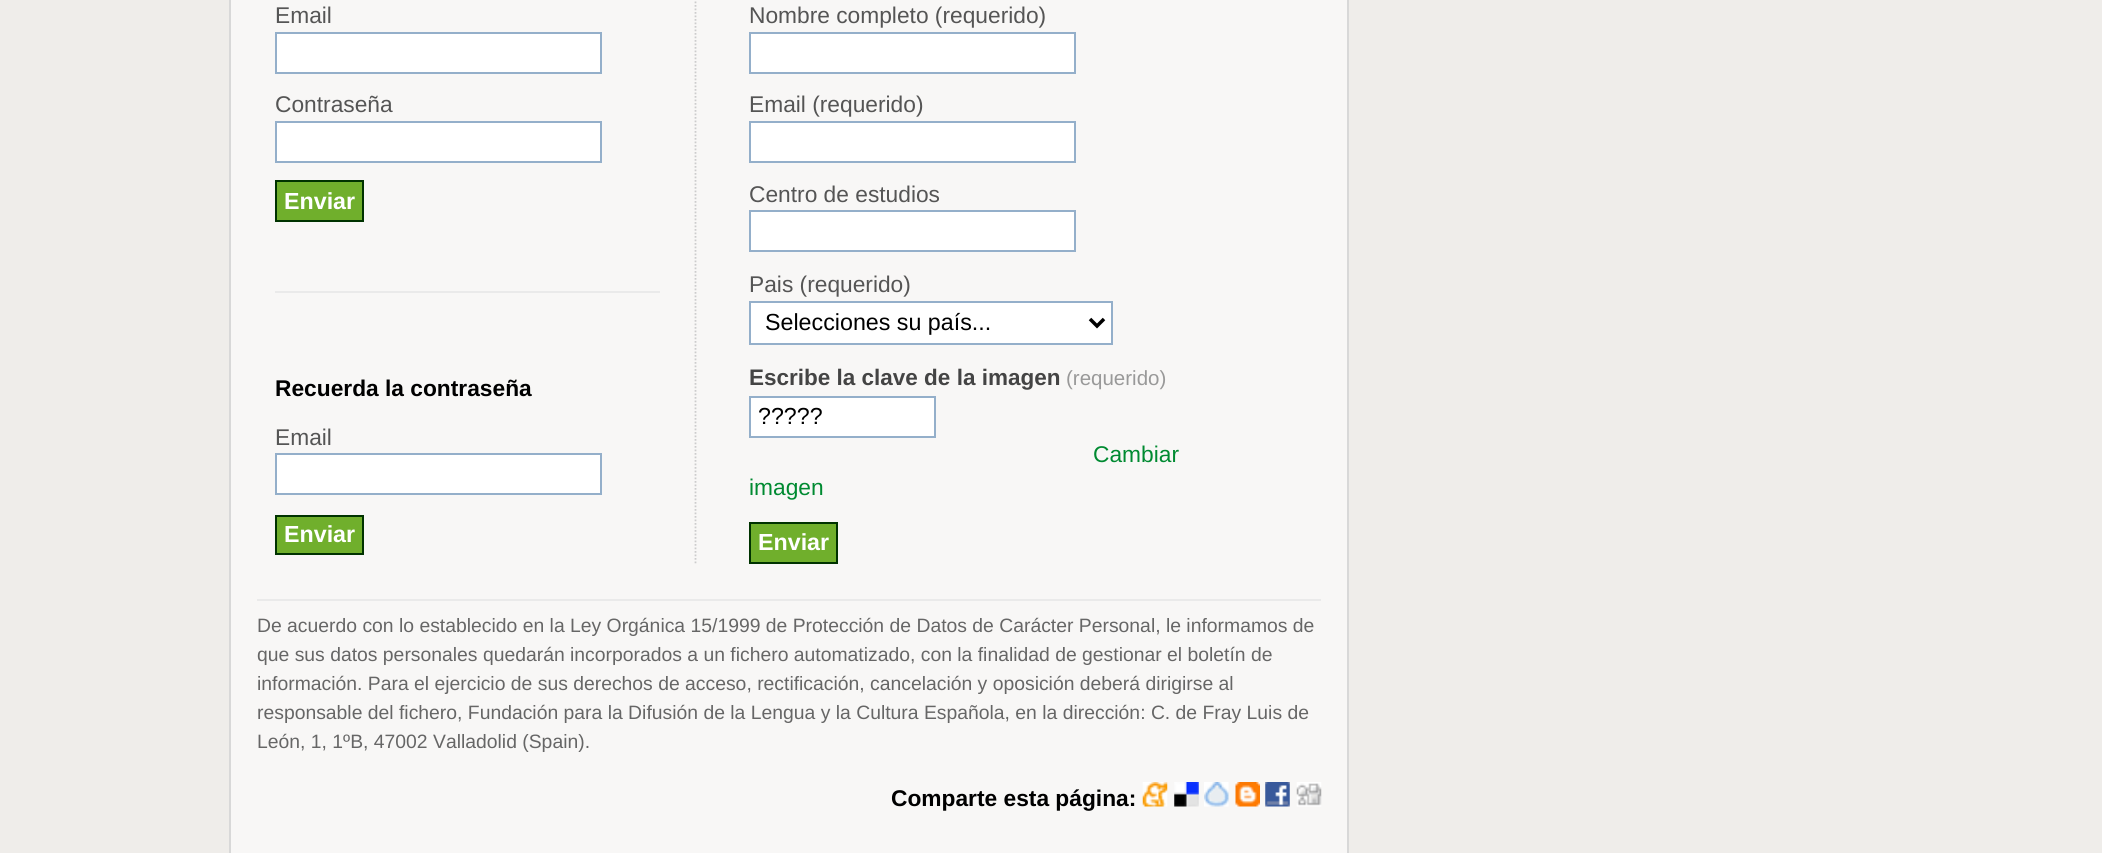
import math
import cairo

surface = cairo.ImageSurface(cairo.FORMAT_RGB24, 2102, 853)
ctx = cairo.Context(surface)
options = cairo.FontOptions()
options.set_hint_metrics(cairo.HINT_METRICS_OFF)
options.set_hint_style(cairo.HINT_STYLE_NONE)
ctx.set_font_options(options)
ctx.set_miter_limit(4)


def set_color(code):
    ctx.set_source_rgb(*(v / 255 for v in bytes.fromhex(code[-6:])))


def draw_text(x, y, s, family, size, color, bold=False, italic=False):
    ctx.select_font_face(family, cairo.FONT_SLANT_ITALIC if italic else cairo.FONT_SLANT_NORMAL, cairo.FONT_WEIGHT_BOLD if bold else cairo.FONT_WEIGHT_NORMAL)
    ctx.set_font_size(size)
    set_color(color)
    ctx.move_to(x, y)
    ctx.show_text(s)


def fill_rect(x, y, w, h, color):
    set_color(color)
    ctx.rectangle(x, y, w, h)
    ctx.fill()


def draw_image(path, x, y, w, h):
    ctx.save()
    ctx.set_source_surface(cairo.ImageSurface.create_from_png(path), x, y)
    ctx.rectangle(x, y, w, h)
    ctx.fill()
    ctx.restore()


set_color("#efedea")
ctx.paint()
set_color("#f8f7f6")
ctx.rectangle(230, -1, 1118, 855)
ctx.fill_preserve()
set_color("#d8d8d8")
ctx.stroke()
draw_text(275, 23, "Email", "Liberation Sans", 22.75, "#555555")
set_color("#ffffff")
ctx.rectangle(276, 33, 325, 40)
ctx.fill_preserve()
set_color("#94afca")
ctx.stroke()
draw_text(275, 112, "Contraseña", "Liberation Sans", 22.75, "#555555")
set_color("#ffffff")
ctx.rectangle(276, 122, 325, 40)
ctx.fill_preserve()
set_color("#94afca")
ctx.stroke()
set_color("#70af2c")
ctx.rectangle(276, 181, 87, 40)
ctx.fill_preserve()
set_color("#003300")
ctx.stroke()
draw_text(284, 209, "Enviar", "Liberation Sans", 23.25, "#ffffff", bold=True)
fill_rect(275, 291, 385, 2, "#eaeaea")
draw_text(275, 396, "Recuerda la contraseña", "Liberation Sans", 22.75, "#000000", bold=True)
draw_text(275, 445, "Email", "Liberation Sans", 22.75, "#555555")
set_color("#ffffff")
ctx.rectangle(276, 454, 325, 40)
ctx.fill_preserve()
set_color("#94afca")
ctx.stroke()
set_color("#70af2c")
ctx.rectangle(276, 516, 87, 38)
ctx.fill_preserve()
set_color("#003300")
ctx.stroke()
draw_text(284, 542, "Enviar", "Liberation Sans", 23.25, "#ffffff", bold=True)
ctx.new_path()
ctx.move_to(695.5, -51)
ctx.line_to(695.5, 563.5)
set_color("#cccccc")
ctx.set_line_width(1.8)
ctx.set_dash([1.75, 1.75])
ctx.stroke()
draw_text(749, 23, "Nombre completo (requerido)", "Liberation Sans", 22.75, "#555555")
set_color("#ffffff")
ctx.rectangle(750, 33, 325, 40)
ctx.fill_preserve()
set_color("#94afca")
ctx.set_line_width(2)
ctx.set_dash([])
ctx.stroke()
draw_text(749, 112, "Email (requerido)", "Liberation Sans", 22.75, "#555555")
set_color("#ffffff")
ctx.rectangle(750, 122, 325, 40)
ctx.fill_preserve()
set_color("#94afca")
ctx.stroke()
draw_text(749, 202, "Centro de estudios", "Liberation Sans", 22.75, "#555555")
set_color("#ffffff")
ctx.rectangle(750, 211, 325, 40)
ctx.fill_preserve()
set_color("#94afca")
ctx.stroke()
draw_text(749, 292, "Pais (requerido)", "Liberation Sans", 22.75, "#555555")
set_color("#ffffff")
ctx.rectangle(750, 302, 362, 42)
ctx.fill_preserve()
set_color("#94afca")
ctx.stroke()
ctx.new_path()
ctx.move_to(1090, 319)
ctx.line_to(1097, 326)
ctx.line_to(1104, 319)
set_color("#000000")
ctx.set_line_width(3.5)
ctx.stroke()
draw_text(765, 330, "Selecciones su país...", "Liberation Sans", 23.25, "#000000")
draw_text(749, 385, "Escribe la clave de la imagen", "Liberation Sans", 22.5, "#444444", bold=True)
draw_text(1066, 385, "(requerido)", "Liberation Sans", 20.5, "#999999")
set_color("#ffffff")
ctx.rectangle(750, 397, 185, 40)
ctx.fill_preserve()
set_color("#94afca")
ctx.set_line_width(2)
ctx.stroke()
draw_text(758, 424, "?????", "Liberation Sans", 23.25, "#000000")
draw_text(1093, 462, "Cambiar", "Liberation Sans", 22.75, "#008a31")
draw_text(749, 495, "imagen", "Liberation Sans", 22.75, "#008a31")
set_color("#70af2c")
ctx.rectangle(750, 523, 87, 40)
ctx.fill_preserve()
set_color("#003300")
ctx.stroke()
draw_text(758, 550, "Enviar", "Liberation Sans", 23.25, "#ffffff", bold=True)
fill_rect(257, 599, 1064, 2, "#eaeaea")
draw_text(257, 632, "De acuerdo con lo establecido en la Ley Orgánica 15/1999 de Protección de Datos de Carácter Personal, le informamos de", "Liberation Sans", 19.35, "#666666")
draw_text(257, 661, "que sus datos personales quedarán incorporados a un fichero automatizado, con la finalidad de gestionar el boletín de", "Liberation Sans", 19.35, "#666666")
draw_text(257, 690, "información. Para el ejercicio de sus derechos de acceso, rectificación, cancelación y oposición deberá dirigirse al", "Liberation Sans", 19.35, "#666666")
draw_text(257, 719, "responsable del fichero, Fundación para la Difusión de la Lengua y la Cultura Española, en la dirección: C. de Fray Luis de", "Liberation Sans", 19.35, "#666666")
draw_text(257, 748, "León, 1, 1ºB, 47002 Valladolid (Spain).", "Liberation Sans", 19.35, "#666666")
draw_text(891, 806, "Comparte esta página:", "Liberation Sans", 22.75, "#000000", bold=True)
draw_image("assets/img1.png", 1142, 782, 26, 25)
draw_image("assets/img2.png", 1174, 782, 25, 25)
draw_image("assets/img3.png", 1204, 782, 25, 25)
draw_image("assets/img4.png", 1235, 782, 25, 25)
draw_image("assets/img5.png", 1265, 782, 25, 25)
draw_image("assets/img6.png", 1296, 782, 26, 25)
surface.write_to_png("output.png")
